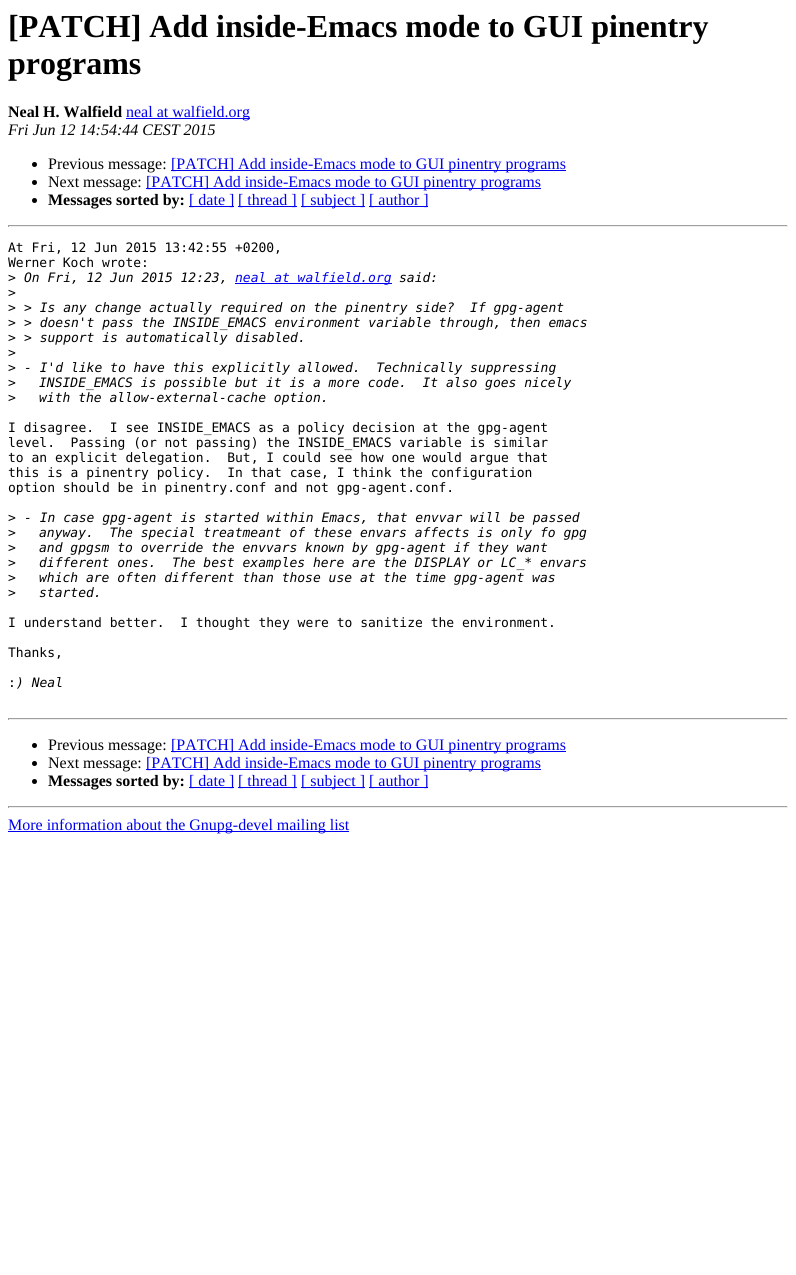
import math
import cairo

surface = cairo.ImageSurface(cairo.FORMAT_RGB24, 796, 1275)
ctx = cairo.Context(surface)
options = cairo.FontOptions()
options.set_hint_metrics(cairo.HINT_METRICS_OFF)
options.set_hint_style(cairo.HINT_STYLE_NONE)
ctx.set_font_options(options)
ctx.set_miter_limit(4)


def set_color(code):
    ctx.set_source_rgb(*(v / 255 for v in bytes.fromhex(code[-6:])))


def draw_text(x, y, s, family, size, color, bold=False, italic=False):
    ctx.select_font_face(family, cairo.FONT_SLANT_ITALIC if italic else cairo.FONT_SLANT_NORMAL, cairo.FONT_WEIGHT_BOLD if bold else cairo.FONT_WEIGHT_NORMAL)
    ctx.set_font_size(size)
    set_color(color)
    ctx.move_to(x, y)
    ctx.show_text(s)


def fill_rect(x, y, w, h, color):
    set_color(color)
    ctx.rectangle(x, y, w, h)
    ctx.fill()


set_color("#ffffff")
ctx.paint()
draw_text(8, 37, "[PATCH] Add inside-Emacs mode to GUI pinentry", "Liberation Serif", 32, "#000000", bold=True)
draw_text(8, 74, "programs", "Liberation Serif", 32, "#000000", bold=True)
draw_text(8, 117, "Neal H. Walfield", "Liberation Serif", 16, "#000000", bold=True)
fill_rect(126, 118, 124, 1, "#0000ee")
draw_text(126, 117, "neal at walfield.org", "Liberation Serif", 16, "#0000ee")
draw_text(8, 135, "Fri Jun 12 14:54:44 CEST 2015", "Liberation Serif", 16, "#000000", italic=True)
ctx.new_path()
ctx.arc(34.5, 164.5, 2.5, 0, 2 * math.pi)
ctx.fill()
draw_text(48, 169, "Previous message:", "Liberation Serif", 16, "#000000")
fill_rect(171, 170, 395, 1, "#0000ee")
draw_text(171, 169, "[PATCH] Add inside-Emacs mode to GUI pinentry programs", "Liberation Serif", 16, "#0000ee")
set_color("#000000")
ctx.new_path()
ctx.arc(34.5, 182.5, 2.5, 0, 2 * math.pi)
ctx.fill()
draw_text(48, 187, "Next message:", "Liberation Serif", 16, "#000000")
fill_rect(146, 188, 395, 1, "#0000ee")
draw_text(146, 187, "[PATCH] Add inside-Emacs mode to GUI pinentry programs", "Liberation Serif", 16, "#0000ee")
set_color("#000000")
ctx.new_path()
ctx.arc(34.5, 200.5, 2.5, 0, 2 * math.pi)
ctx.fill()
draw_text(48, 205, "Messages sorted by:", "Liberation Serif", 16, "#000000", bold=True)
fill_rect(189, 206, 45, 1, "#0000ee")
draw_text(189, 205, "[ date ]", "Liberation Serif", 16, "#0000ee")
fill_rect(238, 206, 59, 1, "#0000ee")
draw_text(238, 205, "[ thread ]", "Liberation Serif", 16, "#0000ee")
fill_rect(301, 206, 64, 1, "#0000ee")
draw_text(301, 205, "[ subject ]", "Liberation Serif", 16, "#0000ee")
fill_rect(369, 206, 59, 1, "#0000ee")
draw_text(369, 205, "[ author ]", "Liberation Serif", 16, "#0000ee")
fill_rect(8, 225, 780, 1, "#9f9f9f")
fill_rect(787, 225, 1, 2, "#eeeeee")
fill_rect(8, 226, 780, 1, "#eeeeee")
fill_rect(8, 225, 1, 2, "#9f9f9f")
draw_text(8, 252, "At Fri, 12 Jun 2015 13:42:55 +0200,", "DejaVu Sans Mono", 13, "#000000")
draw_text(8, 267, "Werner Koch wrote:", "DejaVu Sans Mono", 13, "#000000")
draw_text(8, 282, ">", "DejaVu Sans Mono", 13, "#000000")
draw_text(24, 282, "On Fri, 12 Jun 2015 12:23,", "DejaVu Sans Mono", 13, "#000000", italic=True)
fill_rect(235, 283, 157, 1, "#0000ee")
draw_text(235, 282, "neal at walfield.org", "DejaVu Sans Mono", 13, "#0000ee", italic=True)
draw_text(399, 282, "said:", "DejaVu Sans Mono", 13, "#000000", italic=True)
draw_text(8, 297, ">", "DejaVu Sans Mono", 13, "#000000")
draw_text(8, 312, ">", "DejaVu Sans Mono", 13, "#000000")
draw_text(24, 312, "> Is any change actually required on the pinentry side?  If gpg-agent", "DejaVu Sans Mono", 13, "#000000", italic=True)
draw_text(8, 327, ">", "DejaVu Sans Mono", 13, "#000000")
draw_text(24, 327, "> doesn't pass the INSIDE_EMACS environment variable through, then emacs", "DejaVu Sans Mono", 13, "#000000", italic=True)
draw_text(8, 342, ">", "DejaVu Sans Mono", 13, "#000000")
draw_text(24, 342, "> support is automatically disabled.", "DejaVu Sans Mono", 13, "#000000", italic=True)
draw_text(8, 357, ">", "DejaVu Sans Mono", 13, "#000000")
draw_text(8, 372, ">", "DejaVu Sans Mono", 13, "#000000")
draw_text(24, 372, "- I'd like to have this explicitly allowed.  Technically suppressing", "DejaVu Sans Mono", 13, "#000000", italic=True)
draw_text(8, 387, ">", "DejaVu Sans Mono", 13, "#000000")
draw_text(39, 387, "INSIDE_EMACS is possible but it is a more code.  It also goes nicely", "DejaVu Sans Mono", 13, "#000000", italic=True)
draw_text(8, 402, ">", "DejaVu Sans Mono", 13, "#000000")
draw_text(39, 402, "with the allow-external-cache option.", "DejaVu Sans Mono", 13, "#000000", italic=True)
draw_text(8, 432, "I disagree.  I see INSIDE_EMACS as a policy decision at the gpg-agent", "DejaVu Sans Mono", 13, "#000000")
draw_text(8, 447, "level.  Passing (or not passing) the INSIDE_EMACS variable is similar", "DejaVu Sans Mono", 13, "#000000")
draw_text(8, 462, "to an explicit delegation.  But, I could see how one would argue that", "DejaVu Sans Mono", 13, "#000000")
draw_text(8, 477, "this is a pinentry policy.  In that case, I think the configuration", "DejaVu Sans Mono", 13, "#000000")
draw_text(8, 492, "option should be in pinentry.conf and not gpg-agent.conf.", "DejaVu Sans Mono", 13, "#000000")
draw_text(8, 522, ">", "DejaVu Sans Mono", 13, "#000000")
draw_text(24, 522, "- In case gpg-agent is started within Emacs, that envvar will be passed", "DejaVu Sans Mono", 13, "#000000", italic=True)
draw_text(8, 537, ">", "DejaVu Sans Mono", 13, "#000000")
draw_text(39, 537, "anyway.  The special treatmeant of these envars affects is only fo gpg", "DejaVu Sans Mono", 13, "#000000", italic=True)
draw_text(8, 552, ">", "DejaVu Sans Mono", 13, "#000000")
draw_text(39, 552, "and gpgsm to override the envvars known by gpg-agent if they want", "DejaVu Sans Mono", 13, "#000000", italic=True)
draw_text(8, 567, ">", "DejaVu Sans Mono", 13, "#000000")
draw_text(39, 567, "different ones.  The best examples here are the DISPLAY or LC_* envars", "DejaVu Sans Mono", 13, "#000000", italic=True)
draw_text(8, 582, ">", "DejaVu Sans Mono", 13, "#000000")
draw_text(39, 582, "which are often different than those use at the time gpg-agent was", "DejaVu Sans Mono", 13, "#000000", italic=True)
draw_text(8, 597, ">", "DejaVu Sans Mono", 13, "#000000")
draw_text(39, 597, "started.", "DejaVu Sans Mono", 13, "#000000", italic=True)
draw_text(8, 627, "I understand better.  I thought they were to sanitize the environment.", "DejaVu Sans Mono", 13, "#000000")
draw_text(8, 657, "Thanks,", "DejaVu Sans Mono", 13, "#000000")
draw_text(8, 687, ":", "DejaVu Sans Mono", 13, "#000000")
draw_text(16, 687, ") Neal", "DejaVu Sans Mono", 13, "#000000", italic=True)
fill_rect(8, 718, 780, 1, "#9f9f9f")
fill_rect(787, 718, 1, 2, "#eeeeee")
fill_rect(8, 719, 780, 1, "#eeeeee")
fill_rect(8, 718, 1, 2, "#9f9f9f")
set_color("#000000")
ctx.new_path()
ctx.arc(34.5, 745.5, 2.5, 0, 2 * math.pi)
ctx.fill()
draw_text(48, 750, "Previous message:", "Liberation Serif", 16, "#000000")
fill_rect(171, 751, 395, 1, "#0000ee")
draw_text(171, 750, "[PATCH] Add inside-Emacs mode to GUI pinentry programs", "Liberation Serif", 16, "#0000ee")
set_color("#000000")
ctx.new_path()
ctx.arc(34.5, 763.5, 2.5, 0, 2 * math.pi)
ctx.fill()
draw_text(48, 768, "Next message:", "Liberation Serif", 16, "#000000")
fill_rect(146, 769, 395, 1, "#0000ee")
draw_text(146, 768, "[PATCH] Add inside-Emacs mode to GUI pinentry programs", "Liberation Serif", 16, "#0000ee")
set_color("#000000")
ctx.new_path()
ctx.arc(34.5, 781.5, 2.5, 0, 2 * math.pi)
ctx.fill()
draw_text(48, 786, "Messages sorted by:", "Liberation Serif", 16, "#000000", bold=True)
fill_rect(189, 787, 45, 1, "#0000ee")
draw_text(189, 786, "[ date ]", "Liberation Serif", 16, "#0000ee")
fill_rect(238, 787, 59, 1, "#0000ee")
draw_text(238, 786, "[ thread ]", "Liberation Serif", 16, "#0000ee")
fill_rect(301, 787, 64, 1, "#0000ee")
draw_text(301, 786, "[ subject ]", "Liberation Serif", 16, "#0000ee")
fill_rect(369, 787, 59, 1, "#0000ee")
draw_text(369, 786, "[ author ]", "Liberation Serif", 16, "#0000ee")
fill_rect(8, 806, 780, 1, "#9f9f9f")
fill_rect(787, 806, 1, 2, "#eeeeee")
fill_rect(8, 807, 780, 1, "#eeeeee")
fill_rect(8, 806, 1, 2, "#9f9f9f")
fill_rect(8, 831, 341, 1, "#0000ee")
draw_text(8, 830, "More information about the Gnupg-devel mailing list", "Liberation Serif", 16, "#0000ee")
surface.write_to_png("output.png")
